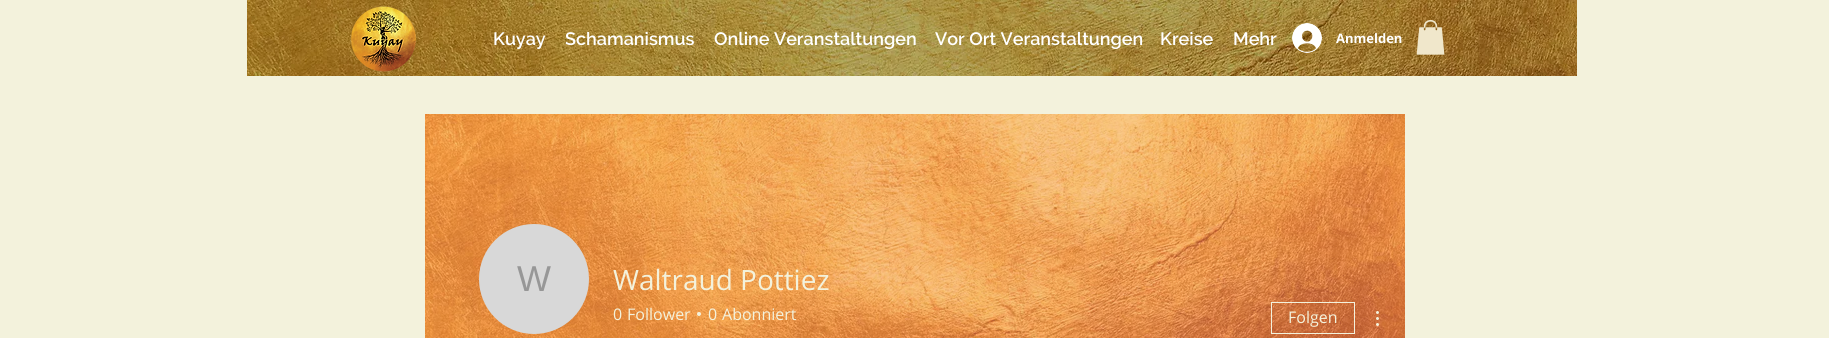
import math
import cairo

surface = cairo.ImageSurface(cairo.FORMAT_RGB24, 1829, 338)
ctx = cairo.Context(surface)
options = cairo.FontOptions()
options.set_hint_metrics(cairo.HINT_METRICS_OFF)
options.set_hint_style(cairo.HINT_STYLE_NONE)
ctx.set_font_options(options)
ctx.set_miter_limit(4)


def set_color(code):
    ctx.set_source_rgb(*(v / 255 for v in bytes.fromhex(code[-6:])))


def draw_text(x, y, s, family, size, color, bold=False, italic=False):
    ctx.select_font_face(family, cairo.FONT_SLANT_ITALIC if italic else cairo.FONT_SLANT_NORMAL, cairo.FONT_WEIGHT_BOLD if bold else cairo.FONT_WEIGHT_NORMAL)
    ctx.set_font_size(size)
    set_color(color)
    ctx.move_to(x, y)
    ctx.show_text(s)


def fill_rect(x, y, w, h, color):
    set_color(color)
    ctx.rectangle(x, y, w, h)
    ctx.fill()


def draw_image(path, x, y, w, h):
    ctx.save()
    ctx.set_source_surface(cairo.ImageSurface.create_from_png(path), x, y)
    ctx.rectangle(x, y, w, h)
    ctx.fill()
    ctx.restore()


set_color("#f3f2dc")
ctx.paint()
draw_image("assets/img1.png", 247, 0, 1330, 76)
draw_image("assets/img2.png", 350, 6, 67, 66)
draw_text(493, 45, "Kuyay", "Raleway SemiBold", 18, "#ffffff")
draw_text(565, 45, "Schamanismus", "Raleway SemiBold", 18, "#ffffff")
draw_text(714, 45, "Online Veranstaltungen", "Raleway SemiBold", 18, "#ffffff")
draw_text(935, 45, "Vor Ort Veranstaltungen", "Raleway SemiBold", 18, "#ffffff")
draw_text(1160, 45, "Kreise", "Raleway SemiBold", 18, "#ffffff")
draw_text(1233, 45, "Mehr", "Raleway SemiBold", 18, "#ffffff")
draw_image("assets/img3.png", 1292, 23, 30, 30)
draw_text(1336, 43, "Anmelden", "Open Sans", 13, "#ffffff", bold=True)
draw_image("assets/img4.png", 1416, 20, 29, 35)
fill_rect(425, 114, 980, 224, "#f27979")
draw_image("assets/img5.png", 425, 114, 980, 224)
set_color("#d8d8d8")
ctx.arc(534, 279, 55, 0, 2 * math.pi)
ctx.fill()
draw_text(517, 291, "W", "Liberation Sans", 36, "#979797")
draw_text(613, 290, "Waltraud Pottiez", "Open Sans", 28, "#f3f2dc")
draw_text(613, 320, "0", "Open Sans", 16, "#f3f2dc")
draw_text(627, 320, "Follower", "Open Sans", 16, "#f3f2dc")
ctx.new_path()
ctx.arc(699, 314, 2, 0, 2 * math.pi)
ctx.fill()
draw_text(708, 320, "0", "Open Sans", 16, "#f3f2dc")
draw_text(722, 320, "Abonniert", "Open Sans", 16, "#f3f2dc")
ctx.rectangle(1271.5, 302.5, 83, 31)
ctx.set_line_width(1)
ctx.stroke()
draw_text(1288, 323, "Folgen", "Open Sans", 16, "#f3f2dc")
draw_image("assets/img6.png", 1376, 311, 3, 15)
surface.write_to_png("output.png")
